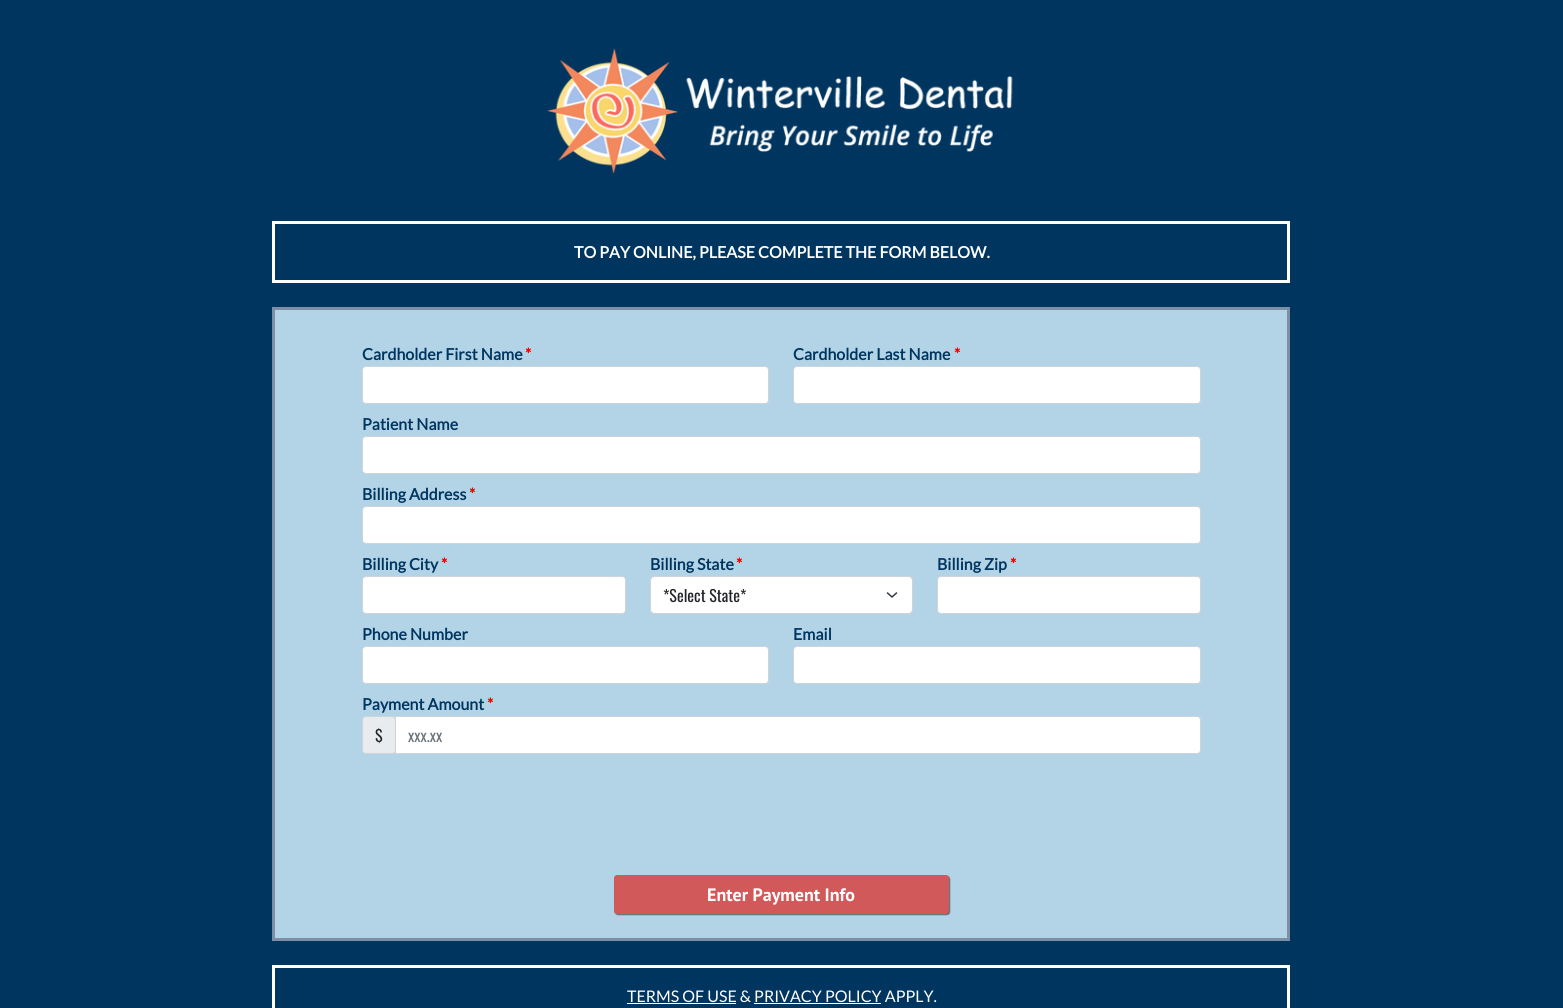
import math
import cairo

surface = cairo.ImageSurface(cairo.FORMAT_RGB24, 1563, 1008)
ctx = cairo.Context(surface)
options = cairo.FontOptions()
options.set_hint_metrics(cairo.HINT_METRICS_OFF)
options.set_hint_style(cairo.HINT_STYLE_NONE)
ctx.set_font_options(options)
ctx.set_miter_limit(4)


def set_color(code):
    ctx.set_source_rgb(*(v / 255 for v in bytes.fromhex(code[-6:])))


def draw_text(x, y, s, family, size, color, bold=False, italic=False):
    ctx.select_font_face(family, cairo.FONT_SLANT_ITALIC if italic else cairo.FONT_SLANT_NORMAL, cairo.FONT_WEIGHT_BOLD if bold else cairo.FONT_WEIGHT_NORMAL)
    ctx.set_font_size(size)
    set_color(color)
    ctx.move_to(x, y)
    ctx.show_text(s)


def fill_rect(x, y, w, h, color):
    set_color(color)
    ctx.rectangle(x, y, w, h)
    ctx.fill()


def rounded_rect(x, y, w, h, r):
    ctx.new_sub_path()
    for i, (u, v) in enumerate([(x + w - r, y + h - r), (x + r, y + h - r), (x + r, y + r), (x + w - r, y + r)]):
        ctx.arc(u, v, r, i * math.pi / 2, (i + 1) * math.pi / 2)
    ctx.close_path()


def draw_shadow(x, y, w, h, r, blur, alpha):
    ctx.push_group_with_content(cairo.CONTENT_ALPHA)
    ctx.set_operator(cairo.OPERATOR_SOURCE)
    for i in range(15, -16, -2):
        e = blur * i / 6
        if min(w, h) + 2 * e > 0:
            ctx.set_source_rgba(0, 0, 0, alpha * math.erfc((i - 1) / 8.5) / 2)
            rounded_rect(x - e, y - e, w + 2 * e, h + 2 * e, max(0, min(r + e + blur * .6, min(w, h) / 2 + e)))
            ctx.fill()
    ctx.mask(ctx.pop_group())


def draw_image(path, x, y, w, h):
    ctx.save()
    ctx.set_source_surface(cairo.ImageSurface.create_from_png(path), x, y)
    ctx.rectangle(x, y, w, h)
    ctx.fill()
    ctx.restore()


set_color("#00355f")
ctx.paint()
draw_image("assets/img1.png", 547, 48, 466, 126)
ctx.rectangle(273.5, 222.5, 1015, 59)
set_color("#ffffff")
ctx.set_line_width(3)
ctx.stroke()
draw_text(574, 258, "TO PAY ONLINE, PLEASE COMPLETE THE FORM BELOW.", "Lato", 16, "#ffffff", bold=True)
set_color("#b3d4e7")
ctx.rectangle(273.5, 308.5, 1015, 631)
ctx.fill_preserve()
set_color("#7d8fa5")
ctx.stroke()
draw_text(362, 360, "Cardholder First Name", "Lato", 16, "#00355f", bold=True)
draw_text(525, 360, "*", "Lato", 16, "#ff0000", bold=True)
set_color("#ffffff")
rounded_rect(362.5, 366.5, 406, 37, 3.5)
ctx.fill_preserve()
set_color("#ced4da")
ctx.set_line_width(1)
ctx.stroke()
draw_text(793, 360, "Cardholder Last Name", "Lato", 16, "#00355f", bold=True)
draw_text(954, 360, "*", "Lato", 16, "#ff0000", bold=True)
set_color("#ffffff")
rounded_rect(793.5, 366.5, 407, 37, 3.5)
ctx.fill_preserve()
set_color("#ced4da")
ctx.stroke()
draw_text(362, 430, "Patient Name", "Lato", 16, "#00355f", bold=True)
set_color("#ffffff")
rounded_rect(362.5, 436.5, 838, 37, 3.5)
ctx.fill_preserve()
set_color("#ced4da")
ctx.stroke()
draw_text(362, 500, "Billing Address", "Lato", 16, "#00355f", bold=True)
draw_text(469, 500, "*", "Lato", 16, "#ff0000", bold=True)
set_color("#ffffff")
rounded_rect(362.5, 506.5, 838, 37, 3.5)
ctx.fill_preserve()
set_color("#ced4da")
ctx.stroke()
draw_text(362, 570, "Billing City", "Lato", 16, "#00355f", bold=True)
draw_text(441, 570, "*", "Lato", 16, "#ff0000", bold=True)
set_color("#ffffff")
rounded_rect(362.5, 576.5, 263, 37, 3.5)
ctx.fill_preserve()
set_color("#ced4da")
ctx.stroke()
draw_text(650, 570, "Billing State", "Lato", 16, "#00355f", bold=True)
draw_text(736, 570, "*", "Lato", 16, "#ff0000", bold=True)
set_color("#ffffff")
rounded_rect(651, 577, 261, 36, 3)
ctx.fill()
ctx.new_path()
ctx.move_to(887.5, 593)
ctx.line_to(892, 597)
ctx.line_to(896.5, 593)
set_color("#343a40")
ctx.set_line_width(1.5)
ctx.set_line_cap(cairo.LINE_CAP_ROUND)
ctx.set_line_join(cairo.LINE_JOIN_ROUND)
ctx.stroke()
rounded_rect(650.5, 576.5, 262, 37, 3.5)
set_color("#ced4da")
ctx.set_line_width(1)
ctx.set_line_cap(cairo.LINE_CAP_BUTT)
ctx.set_line_join(cairo.LINE_JOIN_MITER)
ctx.stroke()
draw_text(663, 602, "*Select State*", "Oswald", 16, "#212529")
draw_text(937, 570, "Billing Zip", "Lato", 16, "#00355f", bold=True)
draw_text(1010, 570, "*", "Lato", 16, "#ff0000", bold=True)
set_color("#ffffff")
rounded_rect(937.5, 576.5, 263, 37, 3.5)
ctx.fill_preserve()
set_color("#ced4da")
ctx.stroke()
draw_text(362, 640, "Phone Number", "Lato", 16, "#00355f", bold=True)
set_color("#ffffff")
rounded_rect(362.5, 646.5, 406, 37, 3.5)
ctx.fill_preserve()
set_color("#ced4da")
ctx.stroke()
draw_text(793, 640, "Email", "Lato", 16, "#00355f", bold=True)
set_color("#ffffff")
rounded_rect(793.5, 646.5, 407, 37, 3.5)
ctx.fill_preserve()
set_color("#ced4da")
ctx.stroke()
draw_text(362, 710, "Payment Amount", "Lato", 16, "#00355f", bold=True)
draw_text(487, 710, "*", "Lato", 16, "#ff0000", bold=True)
set_color("#e9ecef")
rounded_rect(362.5, 716.5, 33, 37, 3.5)
ctx.fill_preserve()
set_color("#ced4da")
ctx.stroke()
draw_text(375, 742, "$", "Oswald", 16, "#212529")
set_color("#ffffff")
ctx.new_path()
ctx.move_to(395.5, 716.5)
ctx.line_to(1197, 716.5)
ctx.curve_to(1199, 716.5, 1200.5, 718, 1200.5, 720)
ctx.line_to(1200.5, 750)
ctx.curve_to(1200.5, 752, 1199, 753.5, 1197, 753.5)
ctx.line_to(395.5, 753.5)
ctx.close_path()
ctx.fill_preserve()
set_color("#ced4da")
ctx.stroke()
draw_text(408, 742, "xxx.xx", "Oswald", 16, "#6c757d")
set_color("#000000")
draw_shadow(615, 876, 335, 39, 3, 0.5, 0.5)
set_color("#d15959")
rounded_rect(614, 875, 335, 39, 3)
ctx.fill()
draw_text(707, 901, "Enter Payment Info", "PT Sans", 18, "#ffffff", bold=True)
ctx.rectangle(273.5, 966.5, 1015, 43)
ctx.set_line_width(3)
ctx.stroke()
draw_text(627, 1002, "TERMS OF USE & PRIVACY POLICY APPLY.", "Lato", 16, "#ffffff")
fill_rect(627, 1003, 109, 1, "#ffffff")
fill_rect(754, 1003, 127, 1, "#ffffff")
surface.write_to_png("output.png")
